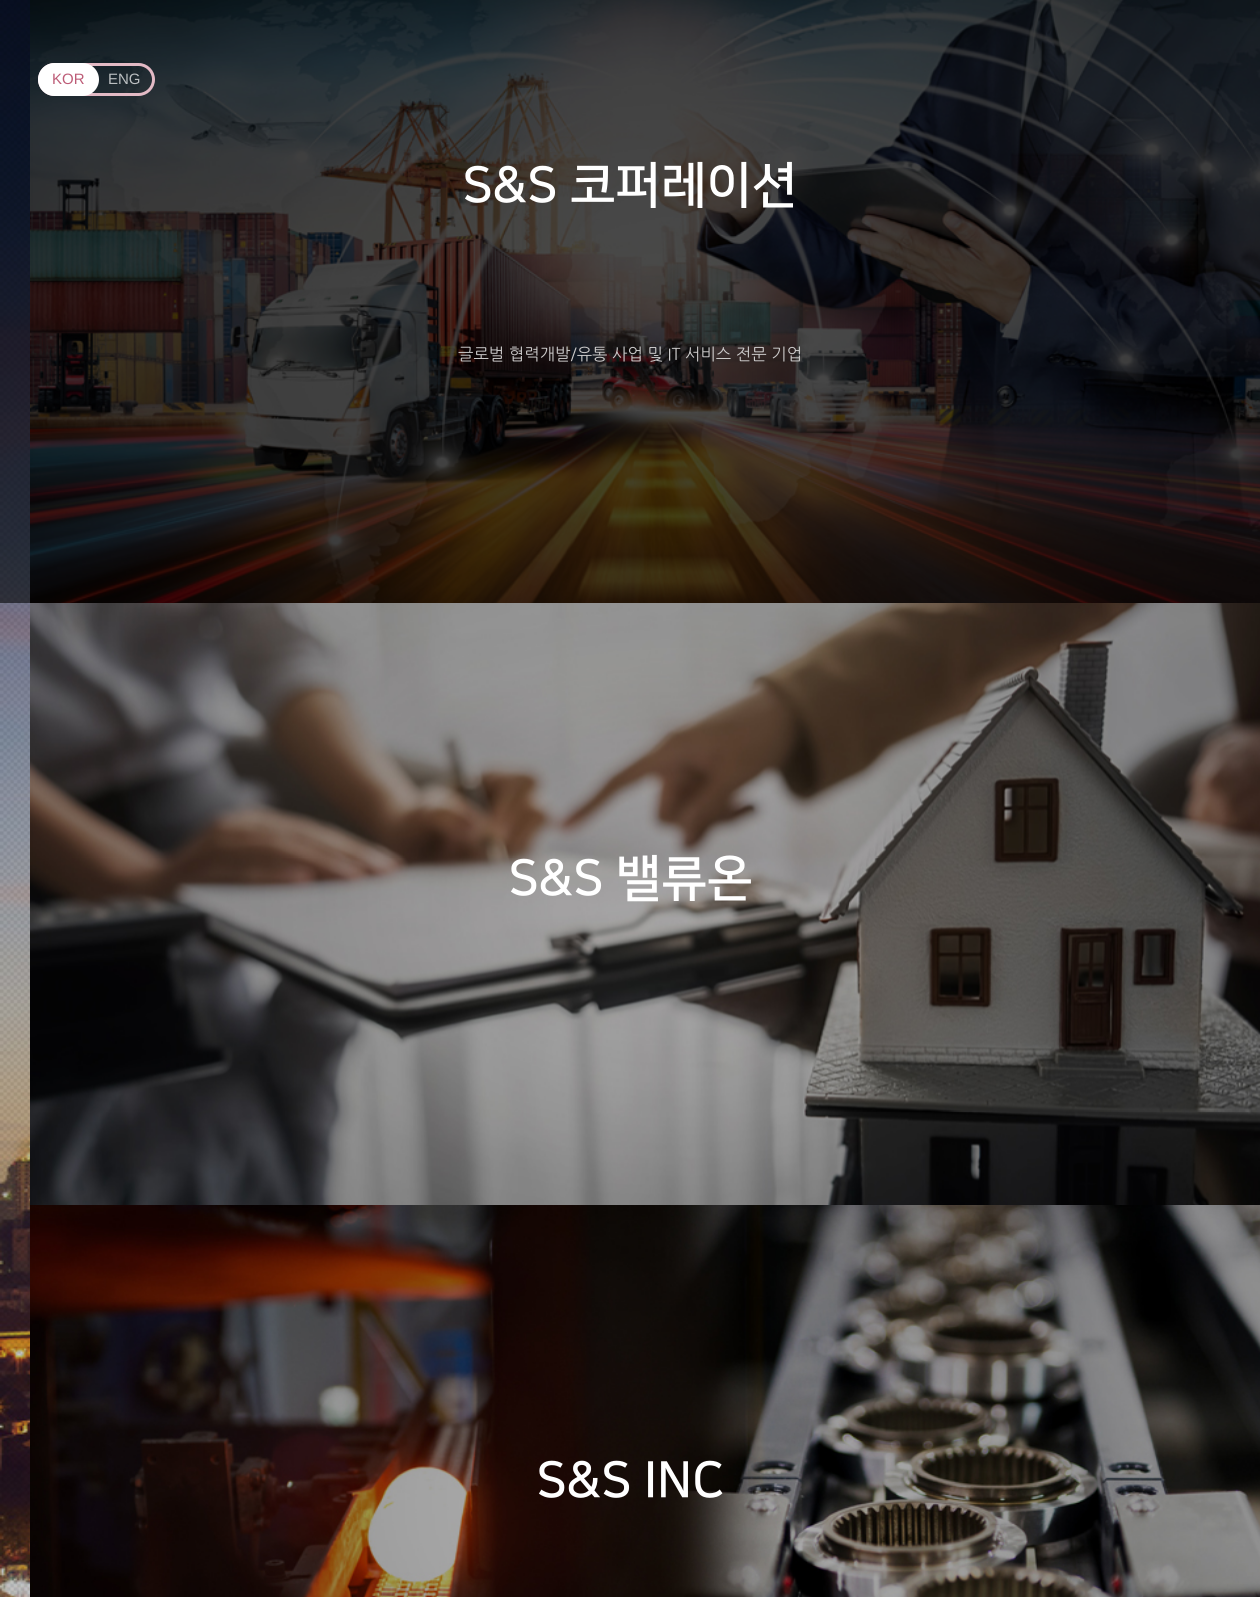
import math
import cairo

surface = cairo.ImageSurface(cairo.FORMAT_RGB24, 1260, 1597)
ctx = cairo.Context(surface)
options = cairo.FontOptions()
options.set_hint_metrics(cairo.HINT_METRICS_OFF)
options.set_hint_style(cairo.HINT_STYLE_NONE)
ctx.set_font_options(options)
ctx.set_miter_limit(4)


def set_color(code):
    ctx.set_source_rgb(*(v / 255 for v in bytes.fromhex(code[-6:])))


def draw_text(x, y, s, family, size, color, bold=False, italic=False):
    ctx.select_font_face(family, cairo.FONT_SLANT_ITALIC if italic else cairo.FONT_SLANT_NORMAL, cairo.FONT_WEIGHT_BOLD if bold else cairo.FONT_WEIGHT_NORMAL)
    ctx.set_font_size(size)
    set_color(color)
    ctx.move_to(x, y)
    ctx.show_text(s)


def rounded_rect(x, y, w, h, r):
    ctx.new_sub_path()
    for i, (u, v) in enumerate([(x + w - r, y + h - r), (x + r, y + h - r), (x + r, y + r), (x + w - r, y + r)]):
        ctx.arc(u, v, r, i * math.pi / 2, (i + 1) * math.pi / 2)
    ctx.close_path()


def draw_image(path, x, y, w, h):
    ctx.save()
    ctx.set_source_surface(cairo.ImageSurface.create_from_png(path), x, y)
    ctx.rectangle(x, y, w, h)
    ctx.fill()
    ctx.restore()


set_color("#ffffff")
ctx.paint()
draw_image("assets/img1.png", 0, 0, 30, 1597)
draw_image("assets/img2.png", 30, 0, 1230, 603)
ctx.set_source_rgba(0, 0, 0, 0.58)
ctx.rectangle(0, 0, 1260, 603)
ctx.fill()
rounded_rect(39.5, 64.5, 114, 30, 15)
set_color("#e3bac5")
ctx.set_line_width(3)
ctx.stroke()
set_color("#ffffff")
rounded_rect(38, 63, 61, 33, 16.5)
ctx.fill()
draw_text(52, 84, "KOR", "Liberation Sans", 15, "#bd5c77")
draw_text(108, 84, "ENG", "Liberation Sans", 15, "#bbbfc1")
draw_text(462, 201, "S&S 코퍼레이션", "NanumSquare", 50, "#ffffff", bold=True)
draw_text(458, 360, "글로벌 협력개발/유통 사업 및 IT 서비스 전문 기업", "NanumGothic", 16.4, "#cccbcb")
draw_image("assets/img3.png", 30, 603, 1230, 602)
draw_text(508, 894, "S&S 밸류온", "NanumSquare", 50, "#ffffff", bold=True)
draw_image("assets/img4.png", 30, 1205, 1230, 392)
draw_text(536, 1496, "S&S INC", "NanumSquare", 50, "#ffffff", bold=True)
surface.write_to_png("output.png")
